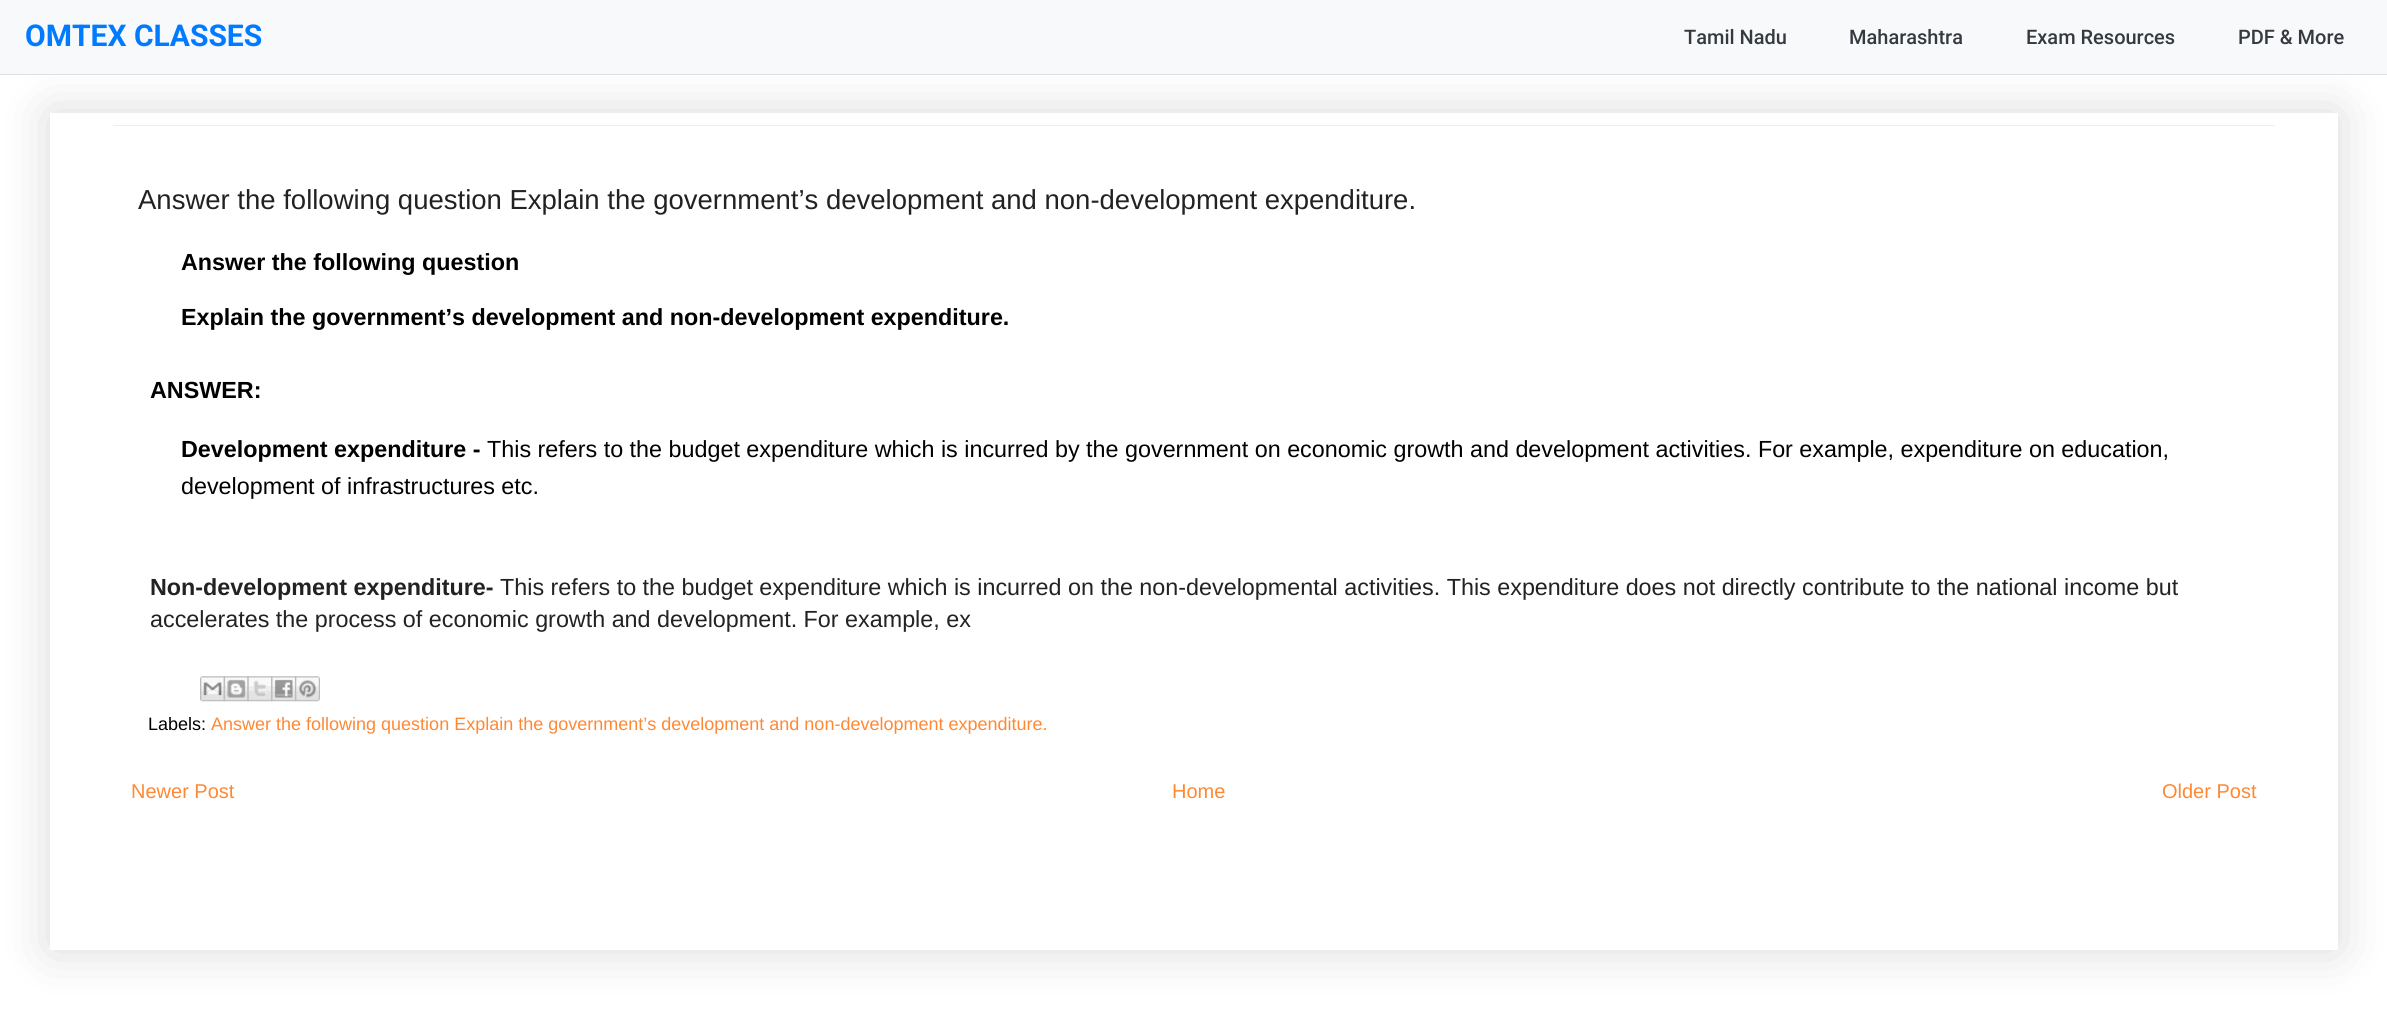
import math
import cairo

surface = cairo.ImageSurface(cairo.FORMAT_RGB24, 2387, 1014)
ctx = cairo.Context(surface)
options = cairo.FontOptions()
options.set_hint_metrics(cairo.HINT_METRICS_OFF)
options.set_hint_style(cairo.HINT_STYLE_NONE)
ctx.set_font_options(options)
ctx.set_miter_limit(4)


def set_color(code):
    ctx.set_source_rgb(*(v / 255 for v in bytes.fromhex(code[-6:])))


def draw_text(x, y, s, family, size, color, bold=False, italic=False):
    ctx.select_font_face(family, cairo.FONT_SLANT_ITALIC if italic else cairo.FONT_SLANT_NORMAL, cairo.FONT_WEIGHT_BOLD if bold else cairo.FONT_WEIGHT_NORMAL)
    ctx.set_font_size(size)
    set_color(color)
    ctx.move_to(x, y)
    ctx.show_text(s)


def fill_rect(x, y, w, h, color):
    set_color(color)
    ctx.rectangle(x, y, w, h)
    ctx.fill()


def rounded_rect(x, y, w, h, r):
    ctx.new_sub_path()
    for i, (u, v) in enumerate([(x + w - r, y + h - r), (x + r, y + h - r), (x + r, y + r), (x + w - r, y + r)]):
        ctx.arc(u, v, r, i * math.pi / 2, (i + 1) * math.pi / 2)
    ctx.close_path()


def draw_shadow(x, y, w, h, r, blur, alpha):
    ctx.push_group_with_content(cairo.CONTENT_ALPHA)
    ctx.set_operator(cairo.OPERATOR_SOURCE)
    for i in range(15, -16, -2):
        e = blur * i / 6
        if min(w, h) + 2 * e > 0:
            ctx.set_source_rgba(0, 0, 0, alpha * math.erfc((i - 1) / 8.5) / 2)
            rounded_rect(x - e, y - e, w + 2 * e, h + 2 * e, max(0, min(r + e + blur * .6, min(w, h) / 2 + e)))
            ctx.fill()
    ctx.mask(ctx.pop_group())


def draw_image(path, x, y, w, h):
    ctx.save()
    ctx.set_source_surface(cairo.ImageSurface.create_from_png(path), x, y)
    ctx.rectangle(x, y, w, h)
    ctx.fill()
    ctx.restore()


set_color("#ffffff")
ctx.paint()
ctx.save()
ctx.set_fill_rule(cairo.FILL_RULE_EVEN_ODD)
ctx.new_path()
ctx.move_to(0, 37)
ctx.line_to(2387, 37)
ctx.line_to(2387, 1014)
ctx.line_to(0, 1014)
ctx.close_path()
ctx.move_to(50, 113)
ctx.line_to(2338, 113)
ctx.line_to(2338, 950)
ctx.line_to(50, 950)
ctx.close_path()
ctx.clip()
set_color("#000000")
draw_shadow(50, 113, 2288, 837, 0, 25, 0.15)
ctx.restore()
fill_rect(0, 0, 2387, 74, "#f8f9fa")
fill_rect(0, 74, 2387, 1, "#e0e0e0")
draw_text(25, 46, "OMTEX CLASSES", "Roboto", 30, "#007bff", bold=True)
draw_text(1684, 44, "Tamil Nadu", "Roboto Medium", 20, "#343a40")
draw_text(1849, 44, "Maharashtra", "Roboto Medium", 20, "#343a40")
draw_text(2026, 44, "Exam Resources", "Roboto Medium", 20, "#343a40")
draw_text(2238, 44, "PDF & More", "Roboto Medium", 20, "#343a40")
fill_rect(113, 125, 2162, 1, "#eeeeee")
draw_text(138, 209, "Answer the following question Explain the government’s development and non-development expenditure.", "Liberation Sans", 27.5, "#222222")
draw_text(181, 270, "Answer the following question", "Liberation Sans", 23.33, "#000000", bold=True)
draw_text(181, 325, "Explain the government’s development and non-development expenditure.", "Liberation Sans", 23.33, "#000000", bold=True)
draw_text(150, 398, "ANSWER:", "Liberation Sans", 23.33, "#000000", bold=True)
draw_text(181, 457, "Development expenditure -", "Liberation Sans", 23.33, "#000000", bold=True)
draw_text(487, 457, "This refers to the budget expenditure which is incurred by the government on economic growth and development activities. For example, expenditure on education,", "Liberation Sans", 23.33, "#000000")
draw_text(181, 494, "development of infrastructures etc.", "Liberation Sans", 23.33, "#000000")
draw_text(150, 595, "Non-development expenditure-", "Liberation Sans", 23.33, "#222222", bold=True)
draw_text(500, 595, "This refers to the budget expenditure which is incurred on the non-developmental activities. This expenditure does not directly contribute to the national income but", "Liberation Sans", 23.33, "#222222")
draw_text(150, 627, "accelerates the process of economic growth and development. For example, ex", "Liberation Sans", 23.33, "#222222")
draw_image("assets/img1.png", 200, 676, 25, 26)
draw_image("assets/img2.png", 223, 676, 26, 26)
draw_image("assets/img3.png", 247, 676, 26, 26)
draw_image("assets/img4.png", 271, 676, 26, 26)
draw_image("assets/img5.png", 295, 676, 25, 26)
draw_text(148, 730, "Labels:", "Liberation Sans", 18, "#000000")
draw_text(211, 730, "Answer the following question Explain the government’s development and non-development expenditure.", "Liberation Sans", 18, "#ff8833")
draw_text(131, 798, "Newer Post", "Liberation Sans", 20, "#ff8833")
draw_text(1172, 798, "Home", "Liberation Sans", 20, "#ff8833")
draw_text(2162, 798, "Older Post", "Liberation Sans", 20, "#ff8833")
surface.write_to_png("output.png")
